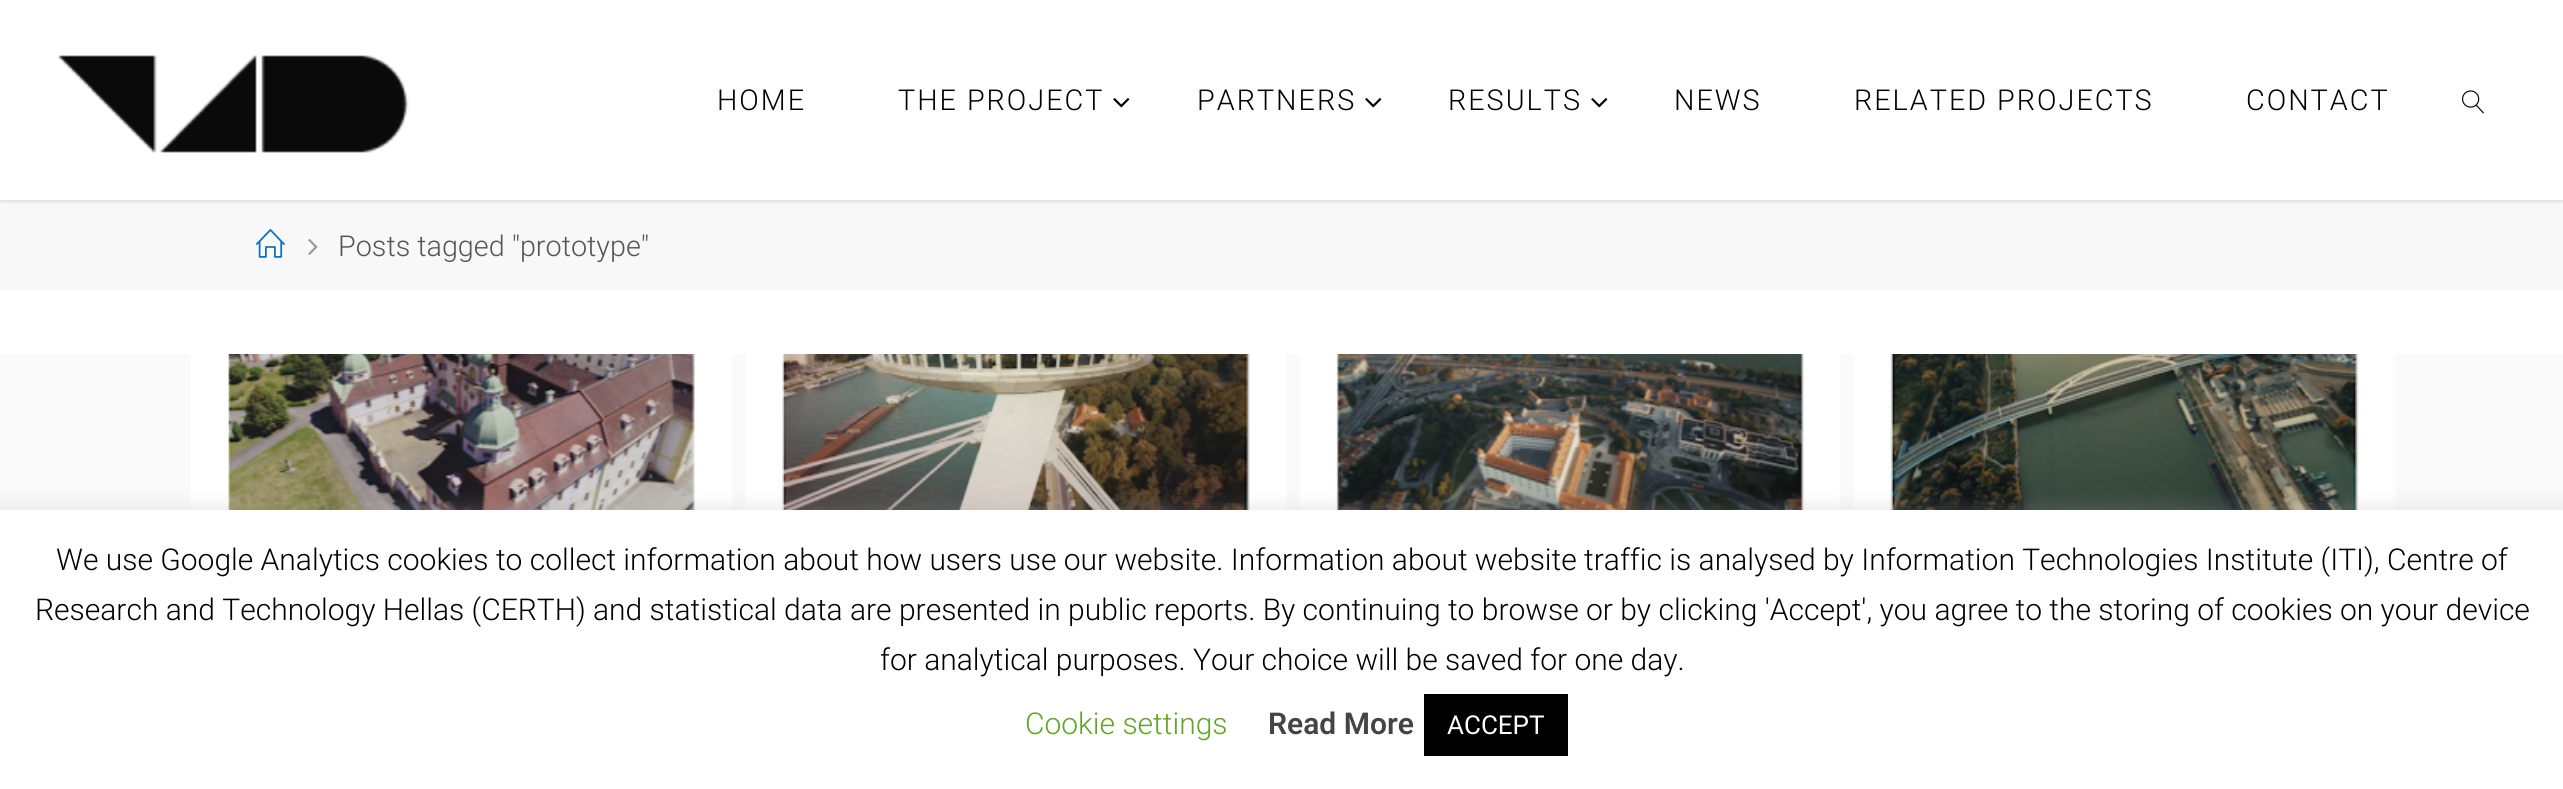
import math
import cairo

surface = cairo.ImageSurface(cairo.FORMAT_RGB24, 2563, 789)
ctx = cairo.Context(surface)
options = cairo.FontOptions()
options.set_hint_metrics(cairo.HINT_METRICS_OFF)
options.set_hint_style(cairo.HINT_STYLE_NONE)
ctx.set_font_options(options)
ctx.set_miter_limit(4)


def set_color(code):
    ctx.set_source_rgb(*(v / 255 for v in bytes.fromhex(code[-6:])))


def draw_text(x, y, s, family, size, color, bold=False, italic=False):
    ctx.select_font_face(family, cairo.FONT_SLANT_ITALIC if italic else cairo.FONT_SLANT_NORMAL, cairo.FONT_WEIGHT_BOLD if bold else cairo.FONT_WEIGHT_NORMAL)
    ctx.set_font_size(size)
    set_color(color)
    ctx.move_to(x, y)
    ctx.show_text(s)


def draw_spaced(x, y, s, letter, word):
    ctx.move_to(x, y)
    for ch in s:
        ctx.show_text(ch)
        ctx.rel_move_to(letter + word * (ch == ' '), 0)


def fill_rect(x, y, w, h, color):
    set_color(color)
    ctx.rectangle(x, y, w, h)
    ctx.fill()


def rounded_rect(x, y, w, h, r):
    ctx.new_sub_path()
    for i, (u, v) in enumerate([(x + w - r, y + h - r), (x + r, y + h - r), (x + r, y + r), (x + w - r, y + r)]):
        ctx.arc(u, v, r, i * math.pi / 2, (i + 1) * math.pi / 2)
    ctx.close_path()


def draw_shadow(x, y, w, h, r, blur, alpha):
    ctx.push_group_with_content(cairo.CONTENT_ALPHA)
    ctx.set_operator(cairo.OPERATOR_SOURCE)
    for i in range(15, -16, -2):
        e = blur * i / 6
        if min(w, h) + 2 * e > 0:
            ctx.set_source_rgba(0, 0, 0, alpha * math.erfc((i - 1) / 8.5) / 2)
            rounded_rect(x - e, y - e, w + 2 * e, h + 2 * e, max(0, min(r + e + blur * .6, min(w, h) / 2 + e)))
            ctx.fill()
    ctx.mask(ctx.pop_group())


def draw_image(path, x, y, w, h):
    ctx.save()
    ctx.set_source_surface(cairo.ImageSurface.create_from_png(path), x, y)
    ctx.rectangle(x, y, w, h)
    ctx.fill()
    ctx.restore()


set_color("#ffffff")
ctx.paint()
fill_rect(0, 200, 2563, 90, "#f8f8f8")
ctx.save()
ctx.rectangle(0, 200, 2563, 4)
ctx.clip()
set_color("#000000")
draw_shadow(0, 0, 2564, 200, 0, 3, 0.2)
ctx.restore()
draw_image("assets/img1.png", 57, 55, 352, 98)
ctx.select_font_face("Roboto Light")
ctx.set_font_size(28.75)
set_color("#000000")
draw_spaced(717, 110, "HOME", 2, 0)
draw_spaced(898, 110, "THE PROJECT", 2, 0)
draw_image("assets/img2.png", 1113, 98, 17, 10)
draw_spaced(1197, 110, "PARTNERS", 2, 0)
draw_image("assets/img2.png", 1365, 98, 17, 10)
draw_spaced(1448, 110, "RESULTS", 2, 0)
draw_image("assets/img2.png", 1591, 98, 17, 10)
draw_spaced(1674, 110, "NEWS", 2, 0)
draw_spaced(1854, 110, "RELATED PROJECTS", 2, 0)
draw_spaced(2246, 110, "CONTACT", 2, 0)
draw_image("assets/img3.png", 2462, 90, 22, 24)
draw_image("assets/img4.png", 256, 229, 29, 29)
draw_image("assets/img5.png", 308, 239, 10, 16)
draw_text(338, 256, "Posts tagged \"prototype\"", "Roboto Light", 28.75, "#555555")
draw_image("assets/img6.png", 0, 354, 2563, 156)
set_color("#acabab")
draw_shadow(0, 508, 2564, 280, 0, 10, 0.3)
fill_rect(0, 510, 2563, 279, "#ffffff")
draw_text(56, 570, "We use Google Analytics cookies to collect information about how users use our website. Information about website traffic is analysed by Information Technologies Institute (ITI), Centre of", "Roboto Light", 30, "#000000")
draw_text(35, 620, "Research and Technology Hellas (CERTH) and statistical data are presented in public reports. By continuing to browse or by clicking 'Accept', you agree to the storing of cookies on your device", "Roboto Light", 30, "#000000")
draw_text(880, 670, "for analytical purposes. Your choice will be saved for one day.", "Roboto Light", 30, "#000000")
draw_text(1025, 734, "Cookie settings", "Roboto Light", 30, "#62a329")
draw_text(1268, 734, "Read More", "Roboto SemiBold", 30, "#444444")
fill_rect(1424, 694, 144, 62, "#000000")
draw_text(1447, 734, "ACCEPT", "Roboto", 26, "#ffffff")
surface.write_to_png("output.png")
